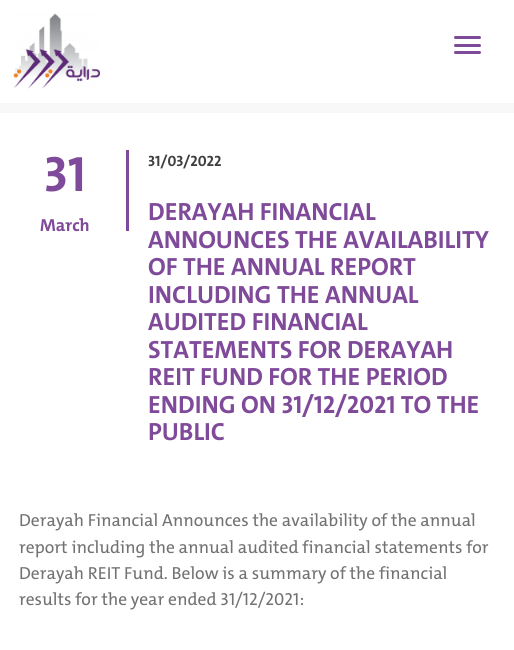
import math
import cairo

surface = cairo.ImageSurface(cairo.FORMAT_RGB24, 514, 650)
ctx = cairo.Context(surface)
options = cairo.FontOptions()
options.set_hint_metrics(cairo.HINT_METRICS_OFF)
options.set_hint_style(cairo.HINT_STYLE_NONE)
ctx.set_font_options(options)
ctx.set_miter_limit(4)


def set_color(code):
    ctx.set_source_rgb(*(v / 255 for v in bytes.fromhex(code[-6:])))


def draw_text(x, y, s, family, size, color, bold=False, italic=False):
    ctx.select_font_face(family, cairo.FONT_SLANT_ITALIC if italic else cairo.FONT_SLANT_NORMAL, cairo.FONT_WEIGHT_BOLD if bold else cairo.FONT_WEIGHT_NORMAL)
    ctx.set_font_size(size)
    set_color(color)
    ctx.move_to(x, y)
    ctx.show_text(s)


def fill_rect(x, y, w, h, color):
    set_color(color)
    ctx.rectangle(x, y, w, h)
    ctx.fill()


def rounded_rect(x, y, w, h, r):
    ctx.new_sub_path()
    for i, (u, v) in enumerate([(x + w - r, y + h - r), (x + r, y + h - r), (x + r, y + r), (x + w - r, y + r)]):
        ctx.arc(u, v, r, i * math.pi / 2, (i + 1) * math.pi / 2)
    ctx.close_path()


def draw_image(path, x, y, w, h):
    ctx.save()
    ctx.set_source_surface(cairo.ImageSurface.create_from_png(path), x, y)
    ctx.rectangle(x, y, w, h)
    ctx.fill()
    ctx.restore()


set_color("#f8f8f8")
ctx.paint()
fill_rect(0, 0, 514, 103, "#ffffff")
draw_image("assets/img1.png", 13, 13, 87, 76)
set_color("#7f4a99")
rounded_rect(454, 36, 27, 3, 1.5)
ctx.fill()
rounded_rect(454, 44, 27, 3, 1.5)
ctx.fill()
rounded_rect(454, 51, 27, 3, 1.5)
ctx.fill()
fill_rect(0, 113, 514, 537, "#ffffff")
draw_text(44, 191, "31", "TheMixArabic", 50, "#7f4a99", bold=True)
fill_rect(126, 150, 3, 81, "#7f4a99")
draw_text(40, 231, "March", "TheMixArabic", 17.5, "#7f4a99", bold=True)
draw_text(148, 166, "31/03/2022", "TheMixArabic", 15, "#404040", bold=True)
draw_text(148, 220, "DERAYAH FINANCIAL", "TheMixArabic", 25, "#7f4a99", bold=True)
draw_text(148, 248, "ANNOUNCES THE AVAILABILITY", "TheMixArabic", 25, "#7f4a99", bold=True)
draw_text(148, 275, "OF THE ANNUAL REPORT", "TheMixArabic", 25, "#7f4a99", bold=True)
draw_text(148, 303, "INCLUDING THE ANNUAL", "TheMixArabic", 25, "#7f4a99", bold=True)
draw_text(148, 330, "AUDITED FINANCIAL", "TheMixArabic", 25, "#7f4a99", bold=True)
draw_text(148, 358, "STATEMENTS FOR DERAYAH", "TheMixArabic", 25, "#7f4a99", bold=True)
draw_text(148, 385, "REIT FUND FOR THE PERIOD", "TheMixArabic", 25, "#7f4a99", bold=True)
draw_text(148, 413, "ENDING ON 31/12/2021 TO THE", "TheMixArabic", 25, "#7f4a99", bold=True)
draw_text(148, 440, "PUBLIC", "TheMixArabic", 25, "#7f4a99", bold=True)
draw_text(19, 526, "Derayah Financial Announces the availability of the annual", "TheMixArabic Medium", 17.5, "#727272")
draw_text(19, 553, "report including the annual audited financial statements for", "TheMixArabic Medium", 17.5, "#727272")
draw_text(19, 579, "Derayah REIT Fund. Below is a summary of the financial", "TheMixArabic Medium", 17.5, "#727272")
draw_text(19, 605, "results for the year ended 31/12/2021:", "TheMixArabic Medium", 17.5, "#727272")
surface.write_to_png("output.png")
